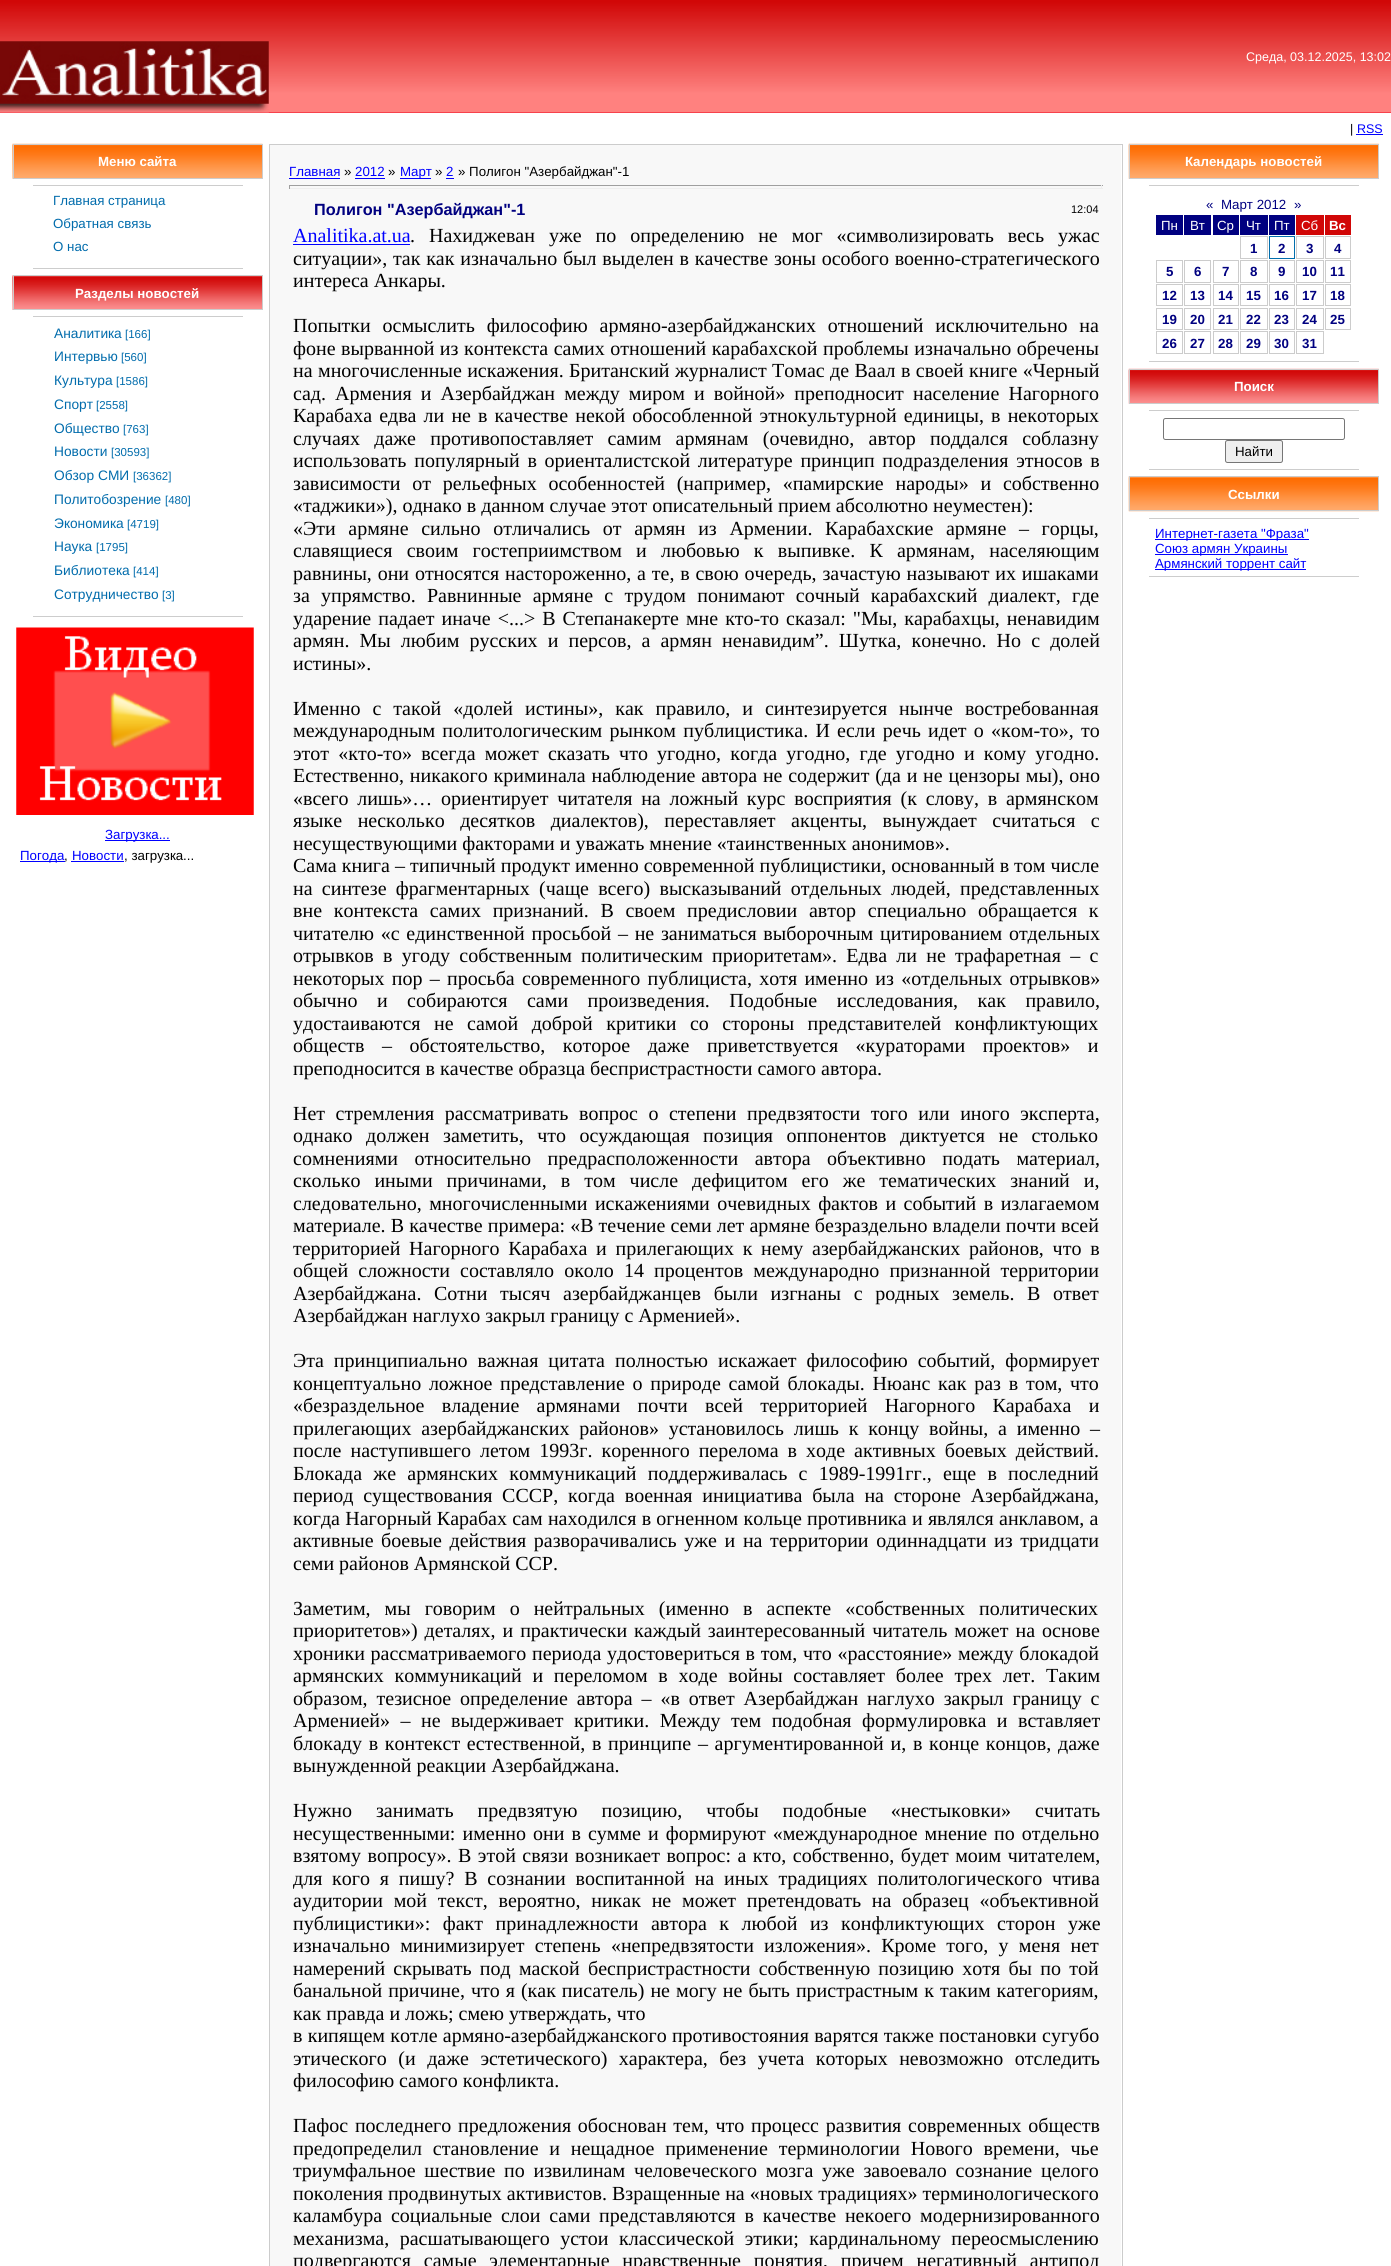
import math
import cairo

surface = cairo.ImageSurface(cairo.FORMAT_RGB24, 1391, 2266)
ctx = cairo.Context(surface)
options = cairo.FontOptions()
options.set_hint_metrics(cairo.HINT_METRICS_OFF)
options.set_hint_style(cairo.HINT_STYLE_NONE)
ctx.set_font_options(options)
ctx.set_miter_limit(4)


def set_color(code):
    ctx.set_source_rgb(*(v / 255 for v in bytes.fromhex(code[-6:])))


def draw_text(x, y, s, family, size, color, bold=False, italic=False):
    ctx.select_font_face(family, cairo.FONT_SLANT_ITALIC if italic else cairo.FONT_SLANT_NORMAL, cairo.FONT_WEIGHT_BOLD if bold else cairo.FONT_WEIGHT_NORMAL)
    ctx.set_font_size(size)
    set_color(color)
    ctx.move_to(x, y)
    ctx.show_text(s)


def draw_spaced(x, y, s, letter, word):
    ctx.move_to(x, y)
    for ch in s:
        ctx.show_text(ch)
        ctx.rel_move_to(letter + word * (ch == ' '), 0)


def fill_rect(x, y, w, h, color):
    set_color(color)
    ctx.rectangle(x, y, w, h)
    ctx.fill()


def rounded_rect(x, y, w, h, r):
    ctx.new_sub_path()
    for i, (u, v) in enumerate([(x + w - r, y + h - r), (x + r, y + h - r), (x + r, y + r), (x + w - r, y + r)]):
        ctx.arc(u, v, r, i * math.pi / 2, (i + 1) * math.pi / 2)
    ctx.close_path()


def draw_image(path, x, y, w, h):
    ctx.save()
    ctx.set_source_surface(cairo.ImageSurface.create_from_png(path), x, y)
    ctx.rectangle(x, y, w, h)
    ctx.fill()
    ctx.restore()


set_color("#ffffff")
ctx.paint()
fill_rect(0, 112, 1391, 1, "#ef001b")
draw_image("assets/img1.png", 0, 0, 1391, 113)
draw_image("assets/img2.png", 0, 41, 269, 72)
draw_text(1246, 61, "Среда, 03.12.2025, 13:02", "Liberation Sans", 12.5, "#ffffff")
draw_text(1350, 133, "|", "Liberation Sans", 12.5, "#000000")
draw_text(1357, 133, "RSS", "Liberation Sans", 12.5, "#0000ff")
fill_rect(1356, 134, 27, 1, "#0000ff")
draw_image("assets/img3.png", 12, 143, 251, 36)
ctx.rectangle(13.5, 144.5, 249, 34)
set_color("#cccccc")
ctx.set_line_width(1)
ctx.stroke()
draw_text(98, 166, "Меню сайта", "Liberation Sans", 13.3, "#ffffff", bold=True)
fill_rect(33, 185, 210, 1, "#cdcdcd")
fill_rect(33, 268, 210, 1, "#cdcdcd")
draw_text(53, 205, "Главная страница", "Liberation Sans", 13.3, "#016cac")
draw_text(53, 228, "Обратная связь", "Liberation Sans", 13.3, "#016cac")
draw_text(53, 251, "О нас", "Liberation Sans", 13.3, "#016cac")
draw_image("assets/img4.png", 12, 275, 250, 35)
ctx.rectangle(13.5, 275.5, 249, 34)
set_color("#cccccc")
ctx.stroke()
draw_text(75, 298, "Разделы новостей", "Liberation Sans", 13.3, "#ffffff", bold=True)
fill_rect(33, 316, 210, 1, "#cdcdcd")
fill_rect(33, 616, 210, 1, "#cdcdcd")
draw_text(54, 338, "Аналитика", "Liberation Sans", 13.75, "#016cac")
draw_text(125, 338, "[166]", "Liberation Sans", 11.5, "#016cac")
draw_text(54, 361, "Интервью", "Liberation Sans", 13.75, "#016cac")
draw_text(121, 361, "[560]", "Liberation Sans", 11.5, "#016cac")
draw_text(54, 385, "Культура", "Liberation Sans", 13.75, "#016cac")
draw_text(116, 385, "[1586]", "Liberation Sans", 11.5, "#016cac")
draw_text(54, 409, "Спорт", "Liberation Sans", 13.75, "#016cac")
draw_text(96, 409, "[2558]", "Liberation Sans", 11.5, "#016cac")
draw_text(54, 433, "Общество", "Liberation Sans", 13.75, "#016cac")
draw_text(123, 433, "[763]", "Liberation Sans", 11.5, "#016cac")
draw_text(54, 456, "Новости", "Liberation Sans", 13.75, "#016cac")
draw_text(111, 456, "[30593]", "Liberation Sans", 11.5, "#016cac")
draw_text(54, 480, "Обзор СМИ", "Liberation Sans", 13.75, "#016cac")
draw_text(133, 480, "[36362]", "Liberation Sans", 11.5, "#016cac")
draw_text(54, 504, "Политобозрение", "Liberation Sans", 13.75, "#016cac")
draw_text(165, 504, "[480]", "Liberation Sans", 11.5, "#016cac")
draw_text(54, 528, "Экономика", "Liberation Sans", 13.75, "#016cac")
draw_text(127, 528, "[4719]", "Liberation Sans", 11.5, "#016cac")
draw_text(54, 551, "Наука", "Liberation Sans", 13.75, "#016cac")
draw_text(96, 551, "[1795]", "Liberation Sans", 11.5, "#016cac")
draw_text(54, 575, "Библиотека", "Liberation Sans", 13.75, "#016cac")
draw_text(133, 575, "[414]", "Liberation Sans", 11.5, "#016cac")
draw_text(54, 599, "Сотрудничество", "Liberation Sans", 13.75, "#016cac")
draw_text(162, 599, "[3]", "Liberation Sans", 11.5, "#016cac")
draw_image("assets/img5.png", 16, 627, 238, 188)
fill_rect(105, 840, 65, 1, "#0000ff")
draw_text(105, 839, "Загрузка...", "Liberation Sans", 13.3, "#0000ff")
fill_rect(20, 861, 45, 1, "#0000ff")
draw_text(20, 860, "Погода", "Liberation Sans", 13.3, "#0000ff")
draw_text(64, 860, ",", "Liberation Sans", 13.3, "#000000")
draw_text(72, 860, "Новости", "Liberation Sans", 13.3, "#0000ff")
fill_rect(71, 861, 53, 1, "#0000ff")
draw_text(124, 860, ", загрузка...", "Liberation Sans", 13.3, "#000000")
ctx.rectangle(269.5, 144.5, 853, 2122)
set_color("#cccccc")
ctx.stroke()
fill_rect(270, 145, 851, 2121, "#f8f8f8")
draw_text(289, 176, "Главная", "Liberation Sans", 13.3, "#0000ff")
fill_rect(289, 178, 51, 1, "#0000ff")
draw_text(344, 176, "»", "Liberation Sans", 13.3, "#000000")
draw_text(355, 176, "2012", "Liberation Sans", 13.3, "#0000ff")
fill_rect(355, 178, 30, 1, "#0000ff")
draw_text(388, 176, "»", "Liberation Sans", 13.3, "#000000")
fill_rect(400, 178, 31, 1, "#0000ff")
draw_text(400, 176, "Март", "Liberation Sans", 13.3, "#0000ff")
draw_text(435, 176, "»", "Liberation Sans", 13.3, "#000000")
draw_text(446, 176, "2", "Liberation Sans", 13.3, "#0000ff")
fill_rect(446, 178, 8, 1, "#0000ff")
draw_text(458, 176, "» Полигон \"Азербайджан\"-1", "Liberation Sans", 13.3, "#000000")
fill_rect(289, 185, 814, 1, "#9f9f9f")
fill_rect(1101, 185, 1, 4, "#eeeeee")
fill_rect(289, 188, 814, 1, "#eeeeee")
fill_rect(289, 185, 1, 4, "#9f9f9f")
draw_text(314, 215, "Полигон \"Азербайджан\"-1", "Liberation Sans", 16.25, "#000080", bold=True)
draw_text(1071, 213, "12:04", "Liberation Sans", 11, "#000000")
draw_text(293, 242, "Analitika.at.ua", "Liberation Serif", 20, "#0000ff")
fill_rect(293, 244, 117, 1, "#0000ff")
draw_text(410, 242, ".", "Liberation Serif", 20, "#000000")
draw_spaced(429, 242, "Нахиджеван уже по определению не мог «символизировать весь ужас", 0, 9)
draw_spaced(293, 265, "ситуации», так как изначально был выделен в качестве зоны особого военно-стратегического", 0, 0.75)
draw_text(293, 287, "интереса Анкары.", "Liberation Serif", 20, "#000000")
draw_spaced(293, 332, "Попытки осмыслить философию армяно-азербайджанских отношений исключительно на", 0, 6.75)
draw_spaced(293, 355, "фоне вырванной из контекста самих отношений карабахской проблемы изначально обречены", 0, 0.5)
draw_spaced(293, 377, "на многочисленные искажения. Британский журналист Томас де Ваал в своей книге «Черный", 0, 0.4)
draw_spaced(293, 400, "сад. Армения и Азербайджан между миром и войной» преподносит население Нагорного", 0, 4.1)
draw_spaced(293, 422, "Карабаха едва ли не в качестве некой обособленной этнокультурной единицы, в некоторых", 0, 2.1)
draw_spaced(293, 445, "случаях даже противопоставляет самим армянам (очевидно, автор поддался соблазну", 0, 9.25)
draw_spaced(293, 467, "использовать популярный в ориенталистской литературе принцип подразделения этносов в", 0, 2.75)
draw_spaced(293, 490, "зависимости от рельефных особенностей (например, «памирские народы» и собственно", 0, 6.75)
draw_text(293, 512, "«таджики»), однако в данном случае этот описательный прием абсолютно неуместен):", "Liberation Serif", 20, "#000000")
draw_spaced(293, 535, "«Эти армяне сильно отличались от армян из Армении. Карабахские армяне – горцы,", 0, 7.6)
draw_spaced(293, 557, "славящиеся своим гостеприимством и любовью к выпивке. К армянам, населяющим", 0, 9.25)
draw_spaced(293, 580, "равнины, они относятся настороженно, а те, в свою очередь, зачастую называют их ишаками", 0, 0.8)
draw_spaced(293, 602, "за упрямство. Равнинные армяне с трудом понимают сочный карабахский диалект, где", 0, 6.25)
draw_spaced(293, 625, "ударение падает иначе <...> В Степанакерте мне кто-то сказал: \"Мы, карабахцы, ненавидим", 0, 2)
draw_spaced(293, 647, "армян. Мы любим русских и персов, а армян ненавидим”. Шутка, конечно. Но с долей", 0, 5.1)
draw_text(293, 670, "истины».", "Liberation Serif", 20, "#000000")
draw_spaced(293, 715, "Именно с такой «долей истины», как правило, и синтезируется нынче востребованная", 0, 7)
draw_spaced(293, 737, "международным политологическим рынком публицистика. И если речь идет о «ком-то», то", 0, 2.25)
draw_spaced(293, 760, "этот «кто-то» всегда может сказать что угодно, когда угодно, где угодно и кому угодно.", 0, 4.1)
draw_spaced(293, 782, "Естественно, никакого криминала наблюдение автора не содержит (да и не цензоры мы), оно", 0, 0.75)
draw_spaced(293, 805, "«всего лишь»… ориентирует читателя на ложный курс восприятия (к слову, в армянском", 0, 3.75)
draw_spaced(293, 827, "языке несколько десятков диалектов), переставляет акценты, вынуждает считаться с", 0, 10.5)
draw_text(293, 850, "несуществующими факторами и уважать мнение «таинственных анонимов».", "Liberation Serif", 20, "#000000")
draw_text(293, 872, "Сама книга – типичный продукт именно современной публицистики, основанный в том числе", "Liberation Serif", 20, "#000000")
draw_spaced(293, 895, "на синтезе фрагментарных (чаще всего) высказываний отдельных людей, представленных", 0, 4.25)
draw_spaced(293, 917, "вне контекста самих признаний. В своем предисловии автор специально обращается к", 0, 6.75)
draw_spaced(293, 940, "читателю «с единственной просьбой – не заниматься выборочным цитированием отдельных", 0, 1.75)
draw_spaced(293, 962, "отрывков в угоду собственным политическим приоритетам». Едва ли не трафаретная – с", 0, 4.25)
draw_spaced(293, 985, "некоторых пор – просьба современного публициста, хотя именно из «отдельных отрывков»", 0, 2.25)
draw_spaced(293, 1007, "обычно и собираются сами произведения. Подобные исследования, как правило,", 0, 14.5)
draw_spaced(293, 1030, "удостаиваются не самой доброй критики со стороны представителей конфликтующих", 0, 8.5)
draw_spaced(293, 1052, "обществ – обстоятельство, которое даже приветствуется «кураторами проектов» и", 0, 12.5)
draw_text(293, 1075, "преподносится в качестве образца беспристрастности самого автора.", "Liberation Serif", 20, "#000000")
draw_spaced(293, 1120, "Нет стремления рассматривать вопрос о степени предвзятости того или иного эксперта,", 0, 5.5)
draw_spaced(293, 1142, "однако должен заметить, что осуждающая позиция оппонентов диктуется не столько", 0, 8.5)
draw_spaced(293, 1165, "сомнениями относительно предрасположенности автора объективно подать материал,", 0, 11.5)
draw_spaced(293, 1187, "сколько иными причинами, в том числе дефицитом его же тематических знаний и,", 0, 9)
draw_spaced(293, 1210, "следовательно, многочисленными искажениями очевидных фактов и событий в излагаемом", 0, 2.5)
draw_spaced(293, 1232, "материале. В качестве примера: «В течение семи лет армяне безраздельно владели почти всей", 0, 0.1)
draw_spaced(293, 1255, "территорией Нагорного Карабаха и прилегающих к нему азербайджанских районов, что в", 0, 3.75)
draw_spaced(293, 1277, "общей сложности составляло около 14 процентов международно признанной территории", 0, 5.1)
draw_spaced(293, 1300, "Азербайджана. Сотни тысяч азербайджанцев были изгнаны с родных земель. В ответ", 0, 7.6)
draw_text(293, 1322, "Азербайджан наглухо закрыл границу с Арменией».", "Liberation Serif", 20, "#000000")
draw_spaced(293, 1367, "Эта принципиально важная цитата полностью искажает философию событий, формирует", 0, 5)
draw_spaced(293, 1390, "концептуально ложное представление о природе самой блокады. Нюанс как раз в том, что", 0, 2.75)
draw_spaced(293, 1412, "«безраздельное владение армянами почти всей территорией Нагорного Карабаха и", 0, 12.25)
draw_spaced(293, 1435, "прилегающих азербайджанских районов» установилось лишь к концу войны, а именно –", 0, 4.75)
draw_spaced(293, 1457, "после наступившего летом 1993г. коренного перелома в ходе активных боевых действий.", 0, 4)
draw_spaced(293, 1480, "Блокада же армянских коммуникаций поддерживалась с 1989-1991гг., еще в последний", 0, 6.25)
draw_spaced(293, 1502, "период существования СССР, когда военная инициатива была на стороне Азербайджана,", 0, 4.75)
draw_spaced(293, 1525, "когда Нагорный Карабах сам находился в огненном кольце противника и являлся анклавом, а", 0, 0.25)
draw_spaced(293, 1547, "активные боевые действия разворачивались уже и на территории одиннадцати из тридцати", 0, 2.6)
draw_text(293, 1570, "семи районов Армянской ССР.", "Liberation Serif", 20, "#000000")
draw_spaced(293, 1615, "Заметим, мы говорим о нейтральных (именно в аспекте «собственных политических", 0, 9)
draw_spaced(293, 1637, "приоритетов») деталях, и практически каждый заинтересованный читатель может на основе", 0, 2)
draw_spaced(293, 1660, "хроники рассматриваемого периода удостовериться в том, что «расстояние» между блокадой", 0, 0.75)
draw_spaced(293, 1682, "армянских коммуникаций и переломом в ходе войны составляет более трех лет. Таким", 0, 5.75)
draw_spaced(293, 1705, "образом, тезисное определение автора – «в ответ Азербайджан наглухо закрыл границу с", 0, 3.9)
draw_spaced(293, 1727, "Арменией» – не выдерживает критики. Между тем подобная формулировка и вставляет", 0, 5.5)
draw_spaced(293, 1750, "блокаду в контекст естественной, в принципе – аргументированной и, в конце концов, даже", 0, 1.7)
draw_text(293, 1772, "вынужденной реакции Азербайджана.", "Liberation Serif", 20, "#000000")
draw_spaced(293, 1817, "Нужно занимать предвзятую позицию, чтобы подобные «нестыковки» считать", 0, 19)
draw_spaced(293, 1840, "несущественными: именно они в сумме и формируют «международное мнение по отдельно", 0, 2)
draw_spaced(293, 1862, "взятому вопросу». В этой связи возникает вопрос: а кто, собственно, будет моим читателем,", 0, 1.5)
draw_spaced(293, 1885, "для кого я пишу? В сознании воспитанной на иных традициях политологического чтива", 0, 4.75)
draw_spaced(293, 1907, "аудитории мой текст, вероятно, никак не может претендовать на образец «объективной", 0, 5.75)
draw_spaced(293, 1930, "публицистики»: факт принадлежности автора к любой из конфликтующих сторон уже", 0, 7.5)
draw_spaced(293, 1952, "изначально минимизирует степень «непредвзятости изложения». Кроме того, у меня нет", 0, 5.25)
draw_spaced(293, 1975, "намерений скрывать под маской беспристрастности собственную позицию хотя бы по той", 0, 3.25)
draw_spaced(293, 1997, "банальной причине, что я (как писатель) не могу не быть пристрастным к таким категориям,", 0, 1)
draw_text(293, 2020, "как правда и ложь; смею утверждать, что", "Liberation Serif", 20, "#000000")
draw_spaced(293, 2042, "в кипящем котле армяно-азербайджанского противостояния варятся также постановки сугубо", 0, 0.25)
draw_spaced(293, 2065, "этического (и даже эстетического) характера, без учета которых невозможно отследить", 0, 6.5)
draw_text(293, 2087, "философию самого конфликта.", "Liberation Serif", 20, "#000000")
draw_spaced(293, 2132, "Пафос последнего предложения обоснован тем, что процесс развития современных обществ", 0, 1.75)
draw_spaced(293, 2155, "предопределил становление и нещадное применение терминологии Нового времени, чье", 0, 5.75)
draw_spaced(293, 2177, "триумфальное шествие по извилинам человеческого мозга уже завоевало сознание целого", 0, 3.75)
draw_text(293, 2200, "поколения продвинутых активистов. Взращенные на «новых традициях» терминологического", "Liberation Serif", 20, "#000000")
draw_spaced(293, 2222, "каламбура социальные слои сами представляются в качестве некоего модернизированного", 0, 3.75)
draw_spaced(293, 2245, "механизма, расшатывающего устои классической этики; кардинальному переосмыслению", 0, 5.5)
draw_spaced(293, 2267, "подвергаются самые элементарные нравственные понятия, причем негативный антипод", 0, 7.75)
draw_image("assets/img6.png", 1128, 143, 251, 36)
ctx.rectangle(1129.5, 144.5, 249, 34)
set_color("#cccccc")
ctx.stroke()
draw_text(1185, 166, "Календарь новостей", "Liberation Sans", 13.3, "#ffffff", bold=True)
fill_rect(1149, 185, 210, 1, "#cdcdcd")
fill_rect(1149, 361, 210, 1, "#cdcdcd")
draw_text(1206, 209, "«", "Liberation Sans", 13.3, "#000080")
draw_text(1221, 209, "Март 2012", "Liberation Sans", 13.3, "#000080")
draw_text(1294, 209, "»", "Liberation Sans", 13.3, "#000080")
fill_rect(1156, 215, 27, 20, "#000080")
draw_text(1161, 230, "Пн", "Liberation Sans", 13.3, "#ffffff")
fill_rect(1184, 215, 27, 20, "#000080")
draw_text(1190, 230, "Вт", "Liberation Sans", 13.3, "#ffffff")
fill_rect(1213, 215, 26, 20, "#000080")
draw_text(1217, 230, "Ср", "Liberation Sans", 13.3, "#ffffff")
fill_rect(1240, 215, 28, 20, "#000080")
draw_text(1246, 230, "Чт", "Liberation Sans", 13.3, "#ffffff")
fill_rect(1269, 215, 26, 20, "#000080")
draw_text(1274, 230, "Пт", "Liberation Sans", 13.3, "#ffffff")
fill_rect(1296, 215, 28, 20, "#d10707")
draw_text(1301, 230, "Сб", "Liberation Sans", 13.3, "#ffffff")
fill_rect(1325, 215, 26, 20, "#d10707")
draw_text(1329, 230, "Вс", "Liberation Sans", 13.3, "#ffffff", bold=True)
ctx.rectangle(1240.5, 236.5, 27, 22)
set_color("#cccccc")
ctx.stroke()
draw_text(1250, 253, "1", "Liberation Sans", 13.3, "#000080", bold=True)
ctx.rectangle(1269.5, 236.5, 25, 22)
set_color("#016ead")
ctx.stroke()
draw_text(1278, 253, "2", "Liberation Sans", 13.3, "#000080", bold=True)
ctx.rectangle(1296.5, 236.5, 27, 22)
set_color("#cccccc")
ctx.stroke()
draw_text(1306, 253, "3", "Liberation Sans", 13.3, "#000080", bold=True)
ctx.rectangle(1325.5, 236.5, 25, 22)
set_color("#cccccc")
ctx.stroke()
draw_text(1334, 253, "4", "Liberation Sans", 13.3, "#000080", bold=True)
ctx.rectangle(1156.5, 260.5, 26, 22)
set_color("#cccccc")
ctx.stroke()
draw_text(1166, 276, "5", "Liberation Sans", 13.3, "#000080", bold=True)
ctx.rectangle(1184.5, 260.5, 26, 22)
set_color("#cccccc")
ctx.stroke()
draw_text(1194, 276, "6", "Liberation Sans", 13.3, "#000080", bold=True)
ctx.rectangle(1213.5, 260.5, 25, 22)
set_color("#cccccc")
ctx.stroke()
draw_text(1222, 276, "7", "Liberation Sans", 13.3, "#000080", bold=True)
ctx.rectangle(1240.5, 260.5, 27, 22)
set_color("#cccccc")
ctx.stroke()
draw_text(1250, 276, "8", "Liberation Sans", 13.3, "#000080", bold=True)
ctx.rectangle(1269.5, 260.5, 25, 22)
set_color("#cccccc")
ctx.stroke()
draw_text(1278, 276, "9", "Liberation Sans", 13.3, "#000080", bold=True)
ctx.rectangle(1296.5, 260.5, 27, 22)
set_color("#cccccc")
ctx.stroke()
draw_text(1302, 276, "10", "Liberation Sans", 13.3, "#000080", bold=True)
ctx.rectangle(1325.5, 260.5, 25, 22)
set_color("#cccccc")
ctx.stroke()
draw_text(1330, 276, "11", "Liberation Sans", 13.3, "#000080", bold=True)
ctx.rectangle(1156.5, 284.5, 26, 21)
set_color("#cccccc")
ctx.stroke()
draw_text(1162, 300, "12", "Liberation Sans", 13.3, "#000080", bold=True)
ctx.rectangle(1184.5, 284.5, 26, 21)
set_color("#cccccc")
ctx.stroke()
draw_text(1190, 300, "13", "Liberation Sans", 13.3, "#000080", bold=True)
ctx.rectangle(1213.5, 284.5, 25, 21)
set_color("#cccccc")
ctx.stroke()
draw_text(1218, 300, "14", "Liberation Sans", 13.3, "#000080", bold=True)
ctx.rectangle(1240.5, 284.5, 27, 21)
set_color("#cccccc")
ctx.stroke()
draw_text(1246, 300, "15", "Liberation Sans", 13.3, "#000080", bold=True)
ctx.rectangle(1269.5, 284.5, 25, 21)
set_color("#cccccc")
ctx.stroke()
draw_text(1274, 300, "16", "Liberation Sans", 13.3, "#000080", bold=True)
ctx.rectangle(1296.5, 284.5, 27, 21)
set_color("#cccccc")
ctx.stroke()
draw_text(1302, 300, "17", "Liberation Sans", 13.3, "#000080", bold=True)
ctx.rectangle(1325.5, 284.5, 25, 21)
set_color("#cccccc")
ctx.stroke()
draw_text(1330, 300, "18", "Liberation Sans", 13.3, "#000080", bold=True)
ctx.rectangle(1156.5, 308.5, 26, 21)
set_color("#cccccc")
ctx.stroke()
draw_text(1162, 324, "19", "Liberation Sans", 13.3, "#000080", bold=True)
ctx.rectangle(1184.5, 308.5, 26, 21)
set_color("#cccccc")
ctx.stroke()
draw_text(1190, 324, "20", "Liberation Sans", 13.3, "#000080", bold=True)
ctx.rectangle(1213.5, 308.5, 25, 21)
set_color("#cccccc")
ctx.stroke()
draw_text(1218, 324, "21", "Liberation Sans", 13.3, "#000080", bold=True)
ctx.rectangle(1240.5, 308.5, 27, 21)
set_color("#cccccc")
ctx.stroke()
draw_text(1246, 324, "22", "Liberation Sans", 13.3, "#000080", bold=True)
ctx.rectangle(1269.5, 308.5, 25, 21)
set_color("#cccccc")
ctx.stroke()
draw_text(1274, 324, "23", "Liberation Sans", 13.3, "#000080", bold=True)
ctx.rectangle(1296.5, 308.5, 27, 21)
set_color("#cccccc")
ctx.stroke()
draw_text(1302, 324, "24", "Liberation Sans", 13.3, "#000080", bold=True)
ctx.rectangle(1325.5, 308.5, 25, 21)
set_color("#cccccc")
ctx.stroke()
draw_text(1330, 324, "25", "Liberation Sans", 13.3, "#000080", bold=True)
ctx.rectangle(1156.5, 331.5, 26, 22)
set_color("#cccccc")
ctx.stroke()
draw_text(1162, 348, "26", "Liberation Sans", 13.3, "#000080", bold=True)
ctx.rectangle(1184.5, 331.5, 26, 22)
set_color("#cccccc")
ctx.stroke()
draw_text(1190, 348, "27", "Liberation Sans", 13.3, "#000080", bold=True)
ctx.rectangle(1213.5, 331.5, 25, 22)
set_color("#cccccc")
ctx.stroke()
draw_text(1218, 348, "28", "Liberation Sans", 13.3, "#000080", bold=True)
ctx.rectangle(1240.5, 331.5, 27, 22)
set_color("#cccccc")
ctx.stroke()
draw_text(1246, 348, "29", "Liberation Sans", 13.3, "#000080", bold=True)
ctx.rectangle(1269.5, 331.5, 25, 22)
set_color("#cccccc")
ctx.stroke()
draw_text(1274, 348, "30", "Liberation Sans", 13.3, "#000080", bold=True)
ctx.rectangle(1296.5, 331.5, 27, 22)
set_color("#cccccc")
ctx.stroke()
draw_text(1302, 348, "31", "Liberation Sans", 13.3, "#000080", bold=True)
draw_image("assets/img7.png", 1128, 368, 251, 36)
ctx.rectangle(1129.5, 369.5, 249, 34)
set_color("#cccccc")
ctx.stroke()
draw_text(1234, 391, "Поиск", "Liberation Sans", 13.3, "#ffffff", bold=True)
fill_rect(1149, 410, 210, 1, "#cdcdcd")
fill_rect(1149, 469, 210, 1, "#cdcdcd")
rounded_rect(1163.5, 418.5, 181, 21, 2)
set_color("#767676")
ctx.stroke()
set_color("#efefef")
rounded_rect(1225.5, 440.5, 57, 22, 2)
ctx.fill_preserve()
set_color("#767676")
ctx.stroke()
draw_text(1235, 456, "Найти", "Liberation Sans", 13.3, "#000000")
draw_image("assets/img8.png", 1128, 476, 251, 36)
ctx.rectangle(1129.5, 476.5, 249, 34)
set_color("#cccccc")
ctx.stroke()
draw_text(1228, 499, "Ссылки", "Liberation Sans", 13.3, "#ffffff", bold=True)
fill_rect(1149, 518, 210, 1, "#cdcdcd")
fill_rect(1149, 576, 210, 1, "#cdcdcd")
fill_rect(1155, 539, 154, 1, "#0000ff")
draw_text(1155, 538, "Интернет-газета \"Фраза\"", "Liberation Sans", 13.3, "#0000ff")
fill_rect(1155, 554, 133, 1, "#0000ff")
draw_text(1155, 553, "Союз армян Украины", "Liberation Sans", 13.3, "#0000ff")
fill_rect(1155, 569, 151, 1, "#0000ff")
draw_text(1155, 568, "Армянский торрент сайт", "Liberation Sans", 13.3, "#0000ff")
surface.write_to_png("output.png")
